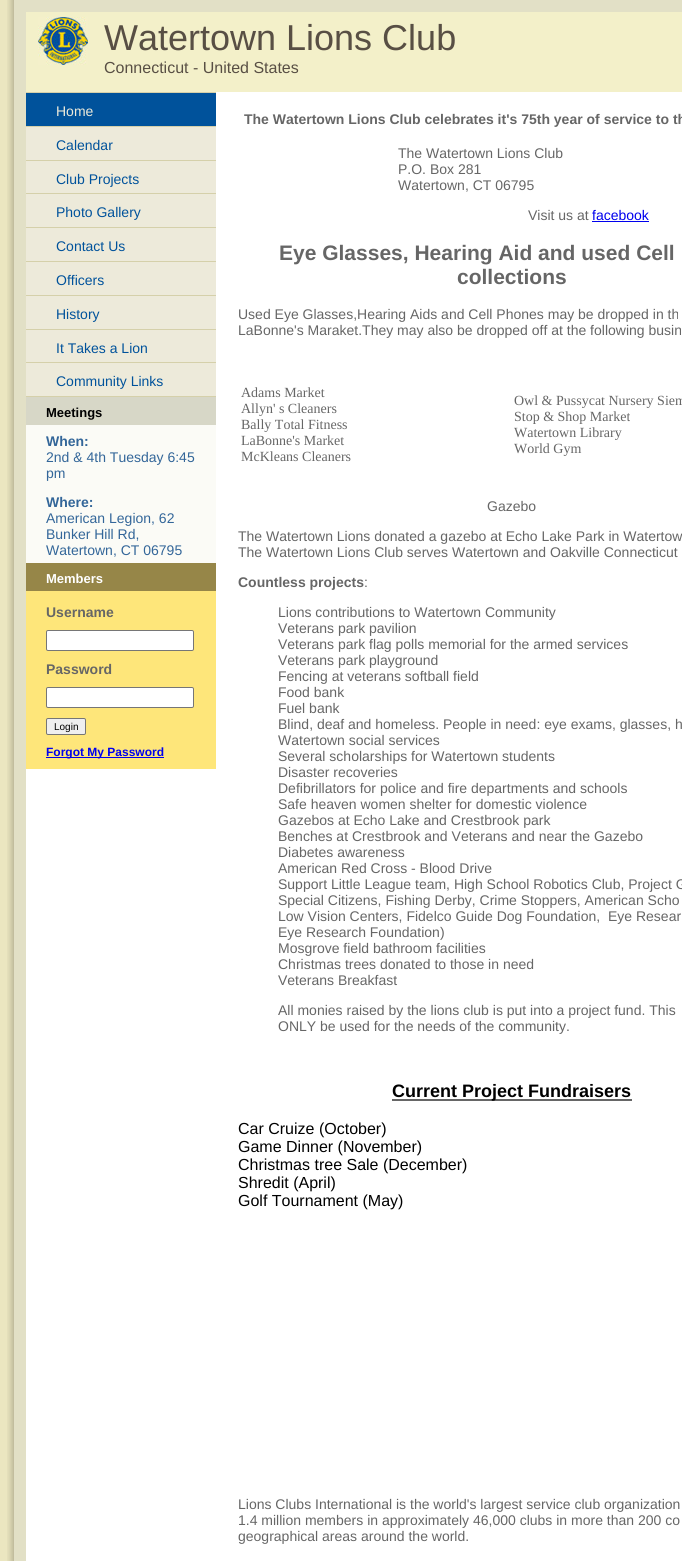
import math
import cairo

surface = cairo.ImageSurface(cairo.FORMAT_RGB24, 682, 1561)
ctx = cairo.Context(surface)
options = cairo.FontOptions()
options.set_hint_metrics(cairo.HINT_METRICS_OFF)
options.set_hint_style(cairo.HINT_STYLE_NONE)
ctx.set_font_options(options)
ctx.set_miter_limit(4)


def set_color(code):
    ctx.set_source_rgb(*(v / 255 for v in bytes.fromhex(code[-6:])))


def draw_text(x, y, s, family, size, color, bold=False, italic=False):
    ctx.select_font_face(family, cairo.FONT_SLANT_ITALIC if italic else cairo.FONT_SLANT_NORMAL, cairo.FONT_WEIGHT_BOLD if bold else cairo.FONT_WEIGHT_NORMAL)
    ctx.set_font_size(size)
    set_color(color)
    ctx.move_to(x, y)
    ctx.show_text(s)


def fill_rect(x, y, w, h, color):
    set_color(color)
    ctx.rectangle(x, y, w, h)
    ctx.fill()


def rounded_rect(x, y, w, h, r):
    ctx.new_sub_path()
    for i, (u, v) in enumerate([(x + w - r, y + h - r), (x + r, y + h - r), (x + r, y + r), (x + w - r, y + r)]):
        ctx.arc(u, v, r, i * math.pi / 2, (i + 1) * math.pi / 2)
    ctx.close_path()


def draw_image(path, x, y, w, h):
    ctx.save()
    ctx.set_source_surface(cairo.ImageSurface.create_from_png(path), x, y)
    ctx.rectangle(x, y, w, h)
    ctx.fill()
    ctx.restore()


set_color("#ebe6c0")
ctx.paint()
draw_image("assets/img1.png", 7, 0, 7, 1561)
fill_rect(14, 0, 668, 1561, "#e2e0c6")
fill_rect(26, 12, 656, 80, "#f3f0c9")
draw_image("assets/img2.png", 38, 17, 50, 48)
draw_text(104, 50, "Watertown Lions Club", "Liberation Sans", 36, "#584f44")
draw_text(104, 73, "Connecticut - United States", "Liberation Sans", 16, "#584f44")
fill_rect(26, 92, 656, 1469, "#ffffff")
fill_rect(26, 92, 190, 1, "#d5d0aa")
fill_rect(26, 126, 190, 1, "#d5d0aa")
fill_rect(26, 93, 190, 33, "#00529b")
draw_text(56, 116, "Home", "Liberation Sans", 14, "#edeada")
fill_rect(26, 160, 190, 1, "#d5d0aa")
fill_rect(26, 127, 190, 33, "#edeada")
draw_text(56, 150, "Calendar", "Liberation Sans", 14, "#00529b")
fill_rect(26, 193, 190, 1, "#d5d0aa")
fill_rect(26, 161, 190, 32, "#edeada")
draw_text(56, 184, "Club Projects", "Liberation Sans", 14, "#00529b")
fill_rect(26, 227, 190, 1, "#d5d0aa")
fill_rect(26, 194, 190, 33, "#edeada")
draw_text(56, 217, "Photo Gallery", "Liberation Sans", 14, "#00529b")
fill_rect(26, 261, 190, 1, "#d5d0aa")
fill_rect(26, 228, 190, 33, "#edeada")
draw_text(56, 251, "Contact Us", "Liberation Sans", 14, "#00529b")
fill_rect(26, 295, 190, 1, "#d5d0aa")
fill_rect(26, 262, 190, 33, "#edeada")
draw_text(56, 285, "Officers", "Liberation Sans", 14, "#00529b")
fill_rect(26, 329, 190, 1, "#d5d0aa")
fill_rect(26, 296, 190, 33, "#edeada")
draw_text(56, 319, "History", "Liberation Sans", 14, "#00529b")
fill_rect(26, 362, 190, 1, "#d5d0aa")
fill_rect(26, 330, 190, 32, "#edeada")
draw_text(56, 353, "It Takes a Lion", "Liberation Sans", 14, "#00529b")
fill_rect(26, 396, 190, 1, "#d5d0aa")
fill_rect(26, 363, 190, 33, "#edeada")
draw_text(56, 386, "Community Links", "Liberation Sans", 14, "#00529b")
fill_rect(26, 425, 190, 138, "#fbfbf6")
fill_rect(26, 397, 190, 28, "#d7d7c7")
draw_text(46, 417, "Meetings", "Liberation Sans", 13, "#000000", bold=True)
draw_text(46, 446, "When:", "Liberation Sans", 14, "#336699", bold=True)
draw_text(46, 462, "2nd & 4th Tuesday 6:45", "Liberation Sans", 14, "#336699")
draw_text(46, 478, "pm", "Liberation Sans", 14, "#336699")
draw_text(46, 507, "Where:", "Liberation Sans", 14, "#336699", bold=True)
draw_text(46, 523, "American Legion, 62", "Liberation Sans", 14, "#336699")
draw_text(46, 539, "Bunker Hill Rd,", "Liberation Sans", 14, "#336699")
draw_text(46, 555, "Watertown, CT 06795", "Liberation Sans", 14, "#336699")
fill_rect(26, 591, 190, 178, "#fee67a")
fill_rect(26, 563, 190, 28, "#968648")
draw_text(46, 583, "Members", "Liberation Sans", 13, "#ffffff", bold=True)
draw_text(46, 617, "Username", "Liberation Sans", 14, "#666666", bold=True)
set_color("#ffffff")
rounded_rect(46.5, 630.5, 147, 20, 1.5)
ctx.fill_preserve()
set_color("#767676")
ctx.set_line_width(1)
ctx.stroke()
draw_text(46, 674, "Password", "Liberation Sans", 14, "#666666", bold=True)
set_color("#ffffff")
rounded_rect(46.5, 687.5, 147, 20, 1.5)
ctx.fill_preserve()
set_color("#767676")
ctx.stroke()
set_color("#efefef")
rounded_rect(46.5, 718.5, 39, 16, 1.5)
ctx.fill_preserve()
set_color("#767676")
ctx.stroke()
draw_text(54, 730, "Login", "Liberation Sans", 10, "#000000")
fill_rect(46, 757, 118, 1, "#0000ee")
draw_text(46, 756, "Forgot My Password", "Liberation Sans", 12, "#0000ee", bold=True)
draw_text(244, 124, "The Watertown Lions Club celebrates it's 75th year of service to th", "Liberation Sans", 14, "#666666", bold=True)
draw_text(398, 158, "The Watertown Lions Club", "Liberation Sans", 14, "#666666")
draw_text(398, 174, "P.O. Box 281", "Liberation Sans", 14, "#666666")
draw_text(398, 190, "Watertown, CT 06795", "Liberation Sans", 14, "#666666")
draw_text(528, 220, "Visit us at", "Liberation Sans", 14, "#666666")
draw_text(592, 220, "facebook", "Liberation Sans", 14, "#0000ee")
fill_rect(592, 221, 57, 1, "#0000ee")
draw_text(279, 260, "Eye Glasses, Hearing Aid and used Cell", "Liberation Sans", 21, "#666666", bold=True)
draw_text(457, 284, "collections", "Liberation Sans", 21, "#666666", bold=True)
draw_text(238, 319, "Used Eye Glasses,Hearing Aids and Cell Phones may be dropped in th", "Liberation Sans", 14, "#666666")
draw_text(238, 335, "LaBonne's Maraket.They may also be dropped off at the following busin", "Liberation Sans", 14, "#666666")
draw_text(241, 397, "Adams Market", "Liberation Serif", 14, "#666666")
draw_text(241, 413, "Allyn' s Cleaners", "Liberation Serif", 14, "#666666")
draw_text(241, 429, "Bally Total Fitness", "Liberation Serif", 14, "#666666")
draw_text(241, 445, "LaBonne's Market", "Liberation Serif", 14, "#666666")
draw_text(241, 461, "McKleans Cleaners", "Liberation Serif", 14, "#666666")
draw_text(514, 405, "Owl & Pussycat Nursery Siem", "Liberation Serif", 14, "#666666")
draw_text(514, 421, "Stop & Shop Market", "Liberation Serif", 14, "#666666")
draw_text(514, 437, "Watertown Library", "Liberation Serif", 14, "#666666")
draw_text(514, 453, "World Gym", "Liberation Serif", 14, "#666666")
draw_text(487, 511, "Gazebo", "Liberation Sans", 14, "#666666")
draw_text(238, 541, "The Watertown Lions donated a gazebo at Echo Lake Park in Watertow", "Liberation Sans", 14, "#666666")
draw_text(238, 557, "The Watertown Lions Club serves Watertown and Oakville Connecticut", "Liberation Sans", 14, "#666666")
draw_text(238, 587, "Countless projects", "Liberation Sans", 14, "#666666", bold=True)
draw_text(364, 587, ":", "Liberation Sans", 14, "#666666")
draw_text(278, 617, "Lions contributions to Watertown Community", "Liberation Sans", 14, "#666666")
draw_text(278, 633, "Veterans park pavilion", "Liberation Sans", 14, "#666666")
draw_text(278, 649, "Veterans park flag polls memorial for the armed services", "Liberation Sans", 14, "#666666")
draw_text(278, 665, "Veterans park playground", "Liberation Sans", 14, "#666666")
draw_text(278, 681, "Fencing at veterans softball field", "Liberation Sans", 14, "#666666")
draw_text(278, 697, "Food bank", "Liberation Sans", 14, "#666666")
draw_text(278, 713, "Fuel bank", "Liberation Sans", 14, "#666666")
draw_text(278, 729, "Blind, deaf and homeless. People in need: eye exams, glasses, h", "Liberation Sans", 14, "#666666")
draw_text(278, 745, "Watertown social services", "Liberation Sans", 14, "#666666")
draw_text(278, 761, "Several scholarships for Watertown students", "Liberation Sans", 14, "#666666")
draw_text(278, 777, "Disaster recoveries", "Liberation Sans", 14, "#666666")
draw_text(278, 793, "Defibrillators for police and fire departments and schools", "Liberation Sans", 14, "#666666")
draw_text(278, 809, "Safe heaven women shelter for domestic violence", "Liberation Sans", 14, "#666666")
draw_text(278, 825, "Gazebos at Echo Lake and Crestbrook park", "Liberation Sans", 14, "#666666")
draw_text(278, 841, "Benches at Crestbrook and Veterans and near the Gazebo", "Liberation Sans", 14, "#666666")
draw_text(278, 857, "Diabetes awareness", "Liberation Sans", 14, "#666666")
draw_text(278, 873, "American Red Cross - Blood Drive", "Liberation Sans", 14, "#666666")
draw_text(278, 889, "Support Little League team, High School Robotics Club, Project G", "Liberation Sans", 14, "#666666")
draw_text(278, 905, "Special Citizens, Fishing Derby, Crime Stoppers, American Scho", "Liberation Sans", 14, "#666666")
draw_text(278, 921, "Low Vision Centers, Fidelco Guide Dog Foundation,  Eye Resear", "Liberation Sans", 14, "#666666")
draw_text(278, 937, "Eye Research Foundation)", "Liberation Sans", 14, "#666666")
draw_text(278, 953, "Mosgrove field bathroom facilities", "Liberation Sans", 14, "#666666")
draw_text(278, 969, "Christmas trees donated to those in need", "Liberation Sans", 14, "#666666")
draw_text(278, 985, "Veterans Breakfast", "Liberation Sans", 14, "#666666")
draw_text(278, 1015, "All monies raised by the lions club is put into a project fund. This", "Liberation Sans", 14, "#666666")
draw_text(278, 1031, "ONLY be used for the needs of the community.", "Liberation Sans", 14, "#666666")
fill_rect(392, 1099, 240, 2, "#666666")
draw_text(392, 1097, "Current Project Fundraisers", "Liberation Sans", 18, "#000000", bold=True)
draw_text(238, 1134, "Car Cruize (October)", "Liberation Sans", 16, "#000000")
draw_text(238, 1152, "Game Dinner (November)", "Liberation Sans", 16, "#000000")
draw_text(238, 1170, "Christmas tree Sale (December)", "Liberation Sans", 16, "#000000")
draw_text(238, 1188, "Shredit (April)", "Liberation Sans", 16, "#000000")
draw_text(238, 1206, "Golf Tournament (May)", "Liberation Sans", 16, "#000000")
draw_text(238, 1509, "Lions Clubs International is the world's largest service club organization", "Liberation Sans", 14, "#666666")
draw_text(238, 1525, "1.4 million members in approximately 46,000 clubs in more than 200 co", "Liberation Sans", 14, "#666666")
draw_text(238, 1541, "geographical areas around the world.", "Liberation Sans", 14, "#666666")
surface.write_to_png("output.png")
